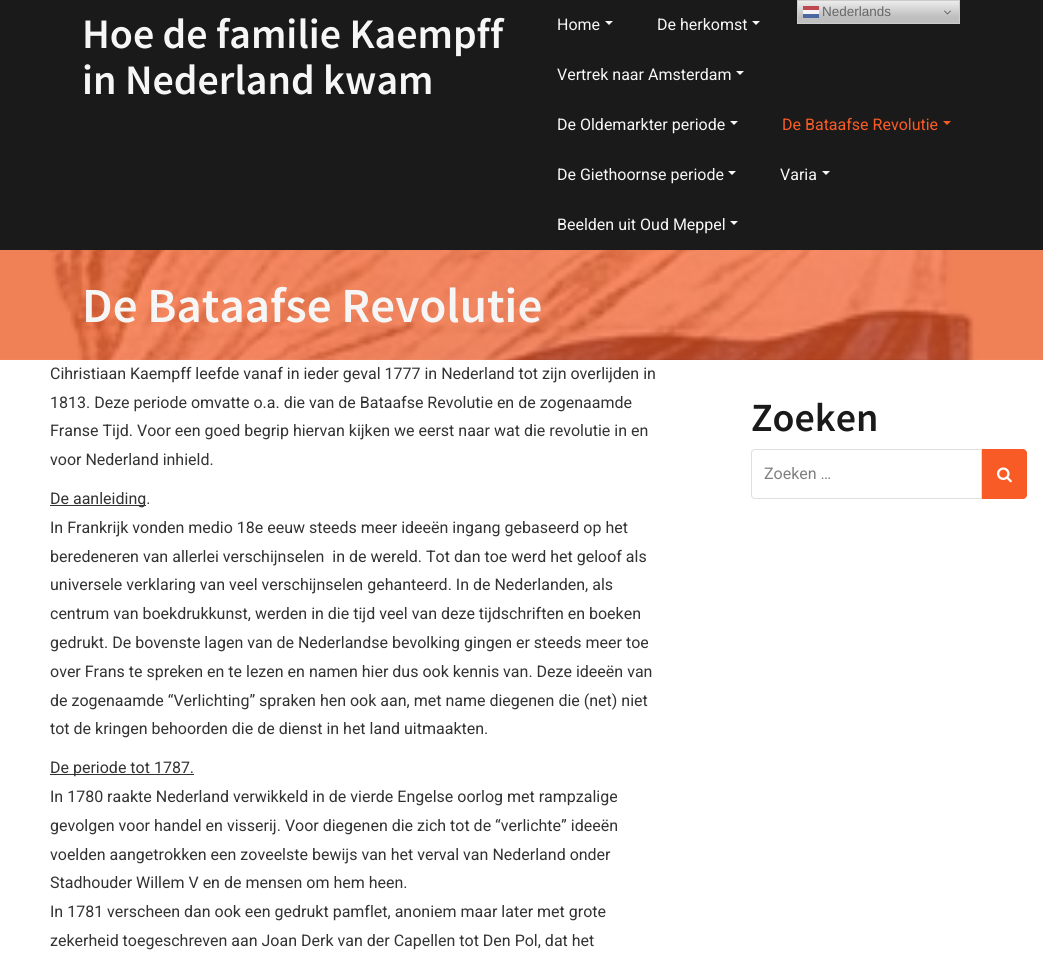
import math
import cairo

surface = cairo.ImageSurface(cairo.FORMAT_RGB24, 1043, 960)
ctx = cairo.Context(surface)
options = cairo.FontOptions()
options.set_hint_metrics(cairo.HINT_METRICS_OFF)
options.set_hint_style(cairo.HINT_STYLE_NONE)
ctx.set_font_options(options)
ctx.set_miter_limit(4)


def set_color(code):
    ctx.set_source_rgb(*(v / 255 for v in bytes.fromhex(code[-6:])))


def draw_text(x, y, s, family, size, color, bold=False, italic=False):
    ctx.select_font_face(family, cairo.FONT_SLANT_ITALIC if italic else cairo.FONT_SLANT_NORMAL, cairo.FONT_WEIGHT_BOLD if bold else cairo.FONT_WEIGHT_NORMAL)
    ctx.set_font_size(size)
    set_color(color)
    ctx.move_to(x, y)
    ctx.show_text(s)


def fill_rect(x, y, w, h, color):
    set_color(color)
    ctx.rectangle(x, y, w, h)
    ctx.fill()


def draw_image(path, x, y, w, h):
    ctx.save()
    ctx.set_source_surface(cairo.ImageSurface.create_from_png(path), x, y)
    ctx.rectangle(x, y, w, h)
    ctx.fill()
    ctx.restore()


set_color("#ffffff")
ctx.paint()
fill_rect(0, 0, 1043, 250, "#1a1a1a")
gradient = cairo.LinearGradient(879, 0, 879, 24)
gradient.add_color_stop_rgba(0, 0.937, 0.937, 0.937, 1)
gradient.add_color_stop_rgba(0.7, 0.749, 0.749, 0.749, 1)
ctx.set_source(gradient)
ctx.rectangle(798, 1, 161, 22)
ctx.fill()
gradient = cairo.LinearGradient(879, 0, 879, 24)
gradient.add_color_stop_rgba(0, 0.988, 0.988, 0.988, 1)
gradient.add_color_stop_rgba(0.7, 0.949, 0.949, 0.949, 1)
ctx.set_source(gradient)
ctx.rectangle(803, 10, 16, 4)
ctx.fill()
ctx.rectangle(797.5, 0.5, 162, 23)
set_color("#cccccc")
ctx.set_line_width(1)
ctx.stroke()
fill_rect(803, 6, 16, 4, "#bd4851")
draw_text(822, 16, "Nederlands", "Liberation Sans", 13.5, "#666666")
draw_image("assets/img1.png", 944, 10, 7, 5)
fill_rect(803, 14, 16, 4, "#4b69a0")
draw_text(82, 48, "Hoe de familie Kaempff", "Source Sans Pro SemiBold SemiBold", 42, "#f6f6f6")
draw_text(82, 94, "in Nederland kwam", "Source Sans Pro SemiBold SemiBold", 42, "#f6f6f6")
draw_text(557, 30, "Home", "Roboto", 16, "#f6f6f6")
ctx.new_path()
ctx.move_to(605, 21)
ctx.line_to(613, 21)
ctx.line_to(609, 25)
ctx.close_path()
ctx.fill()
draw_text(657, 30, "De herkomst", "Roboto", 16, "#f6f6f6")
ctx.new_path()
ctx.move_to(752, 21)
ctx.line_to(760, 21)
ctx.line_to(756, 25)
ctx.close_path()
ctx.fill()
draw_text(557, 80, "Vertrek naar Amsterdam", "Roboto", 16, "#f6f6f6")
ctx.new_path()
ctx.move_to(736, 71)
ctx.line_to(744, 71)
ctx.line_to(740, 75)
ctx.close_path()
ctx.fill()
draw_text(557, 130, "De Oldemarkter periode", "Roboto", 16, "#f6f6f6")
ctx.new_path()
ctx.move_to(730, 121)
ctx.line_to(738, 121)
ctx.line_to(734, 125)
ctx.close_path()
ctx.fill()
draw_text(782, 130, "De Bataafse Revolutie", "Roboto", 16, "#f95b26")
ctx.new_path()
ctx.move_to(943, 121)
ctx.line_to(951, 121)
ctx.line_to(947, 125)
ctx.close_path()
ctx.fill()
draw_text(557, 180, "De Giethoornse periode", "Roboto", 16, "#f6f6f6")
ctx.new_path()
ctx.move_to(728, 171)
ctx.line_to(736, 171)
ctx.line_to(732, 175)
ctx.close_path()
ctx.fill()
draw_text(780, 180, "Varia", "Roboto", 16, "#f6f6f6")
ctx.new_path()
ctx.move_to(822, 171)
ctx.line_to(830, 171)
ctx.line_to(826, 175)
ctx.close_path()
ctx.fill()
draw_text(557, 230, "Beelden uit Oud Meppel", "Roboto", 16, "#f6f6f6")
ctx.new_path()
ctx.move_to(730, 221)
ctx.line_to(738, 221)
ctx.line_to(734, 225)
ctx.close_path()
ctx.fill()
draw_image("assets/img2.png", 0, 250, 1043, 110)
draw_text(82, 322, "De Bataafse Revolutie", "Source Sans Pro SemiBold SemiBold", 49, "#f6f6f6")
draw_text(50, 379, "Cihristiaan Kaempff leefde vanaf in ieder geval 1777 in Nederland tot zijn overlijden in", "Roboto", 16, "#333333")
draw_text(50, 408, "1813. Deze periode omvatte o.a. die van de Bataafse Revolutie en de zogenaamde", "Roboto", 16, "#333333")
draw_text(50, 436, "Franse Tijd. Voor een goed begrip hiervan kijken we eerst naar wat die revolutie in en", "Roboto", 16, "#333333")
draw_text(50, 465, "voor Nederland inhield.", "Roboto", 16, "#333333")
fill_rect(50, 505, 96, 1, "#333333")
draw_text(50, 504, "De aanleiding.", "Roboto", 16, "#333333")
draw_text(50, 533, "In Frankrijk vonden medio 18e eeuw steeds meer ideeën ingang gebaseerd op het", "Roboto", 16, "#333333")
draw_text(50, 562, "beredeneren van allerlei verschijnselen  in de wereld. Tot dan toe werd het geloof als", "Roboto", 16, "#333333")
draw_text(50, 590, "universele verklaring van veel verschijnselen gehanteerd. In de Nederlanden, als", "Roboto", 16, "#333333")
draw_text(50, 619, "centrum van boekdrukkunst, werden in die tijd veel van deze tijdschriften en boeken", "Roboto", 16, "#333333")
draw_text(50, 648, "gedrukt. De bovenste lagen van de Nederlandse bevolking gingen er steeds meer toe", "Roboto", 16, "#333333")
draw_text(50, 677, "over Frans te spreken en te lezen en namen hier dus ook kennis van. Deze ideeën van", "Roboto", 16, "#333333")
draw_text(50, 706, "de zogenaamde “Verlichting” spraken hen ook aan, met name diegenen die (net) niet", "Roboto", 16, "#333333")
draw_text(50, 734, "tot de kringen behoorden die de dienst in het land uitmaakten.", "Roboto", 16, "#333333")
fill_rect(50, 774, 144, 1, "#333333")
draw_text(50, 773, "De periode tot 1787.", "Roboto", 16, "#333333")
draw_text(50, 802, "In 1780 raakte Nederland verwikkeld in de vierde Engelse oorlog met rampzalige", "Roboto", 16, "#333333")
draw_text(50, 831, "gevolgen voor handel en visserij. Voor diegenen die zich tot de “verlichte” ideeën", "Roboto", 16, "#333333")
draw_text(50, 860, "voelden aangetrokken een zoveelste bewijs van het verval van Nederland onder", "Roboto", 16, "#333333")
draw_text(50, 888, "Stadhouder Willem V en de mensen om hem heen.", "Roboto", 16, "#333333")
draw_text(50, 917, "In 1781 verscheen dan ook een gedrukt pamflet, anoniem maar later met grote", "Roboto", 16, "#333333")
draw_text(50, 946, "zekerheid toegeschreven aan Joan Derk van der Capellen tot Den Pol, dat het", "Roboto", 16, "#333333")
draw_text(751, 431, "Zoeken", "Source Sans Pro SemiBold SemiBold", 40, "#1a1a1a")
ctx.new_path()
ctx.move_to(755, 449.5)
ctx.line_to(981.5, 449.5)
ctx.line_to(981.5, 498.5)
ctx.line_to(755, 498.5)
ctx.curve_to(753, 498.5, 751.5, 497, 751.5, 495)
ctx.line_to(751.5, 453)
ctx.curve_to(751.5, 451, 753, 449.5, 755, 449.5)
ctx.close_path()
set_color("#dfdfdf")
ctx.stroke()
draw_text(764, 479, "Zoeken …", "Roboto", 16, "#808080")
set_color("#f95b26")
ctx.new_path()
ctx.move_to(982, 449)
ctx.line_to(1023, 449)
ctx.curve_to(1025, 449, 1027, 451, 1027, 453)
ctx.line_to(1027, 495)
ctx.curve_to(1027, 497, 1025, 499, 1023, 499)
ctx.line_to(982, 499)
ctx.close_path()
ctx.fill()
draw_image("assets/img3.png", 997, 467, 15, 16)
surface.write_to_png("output.png")
